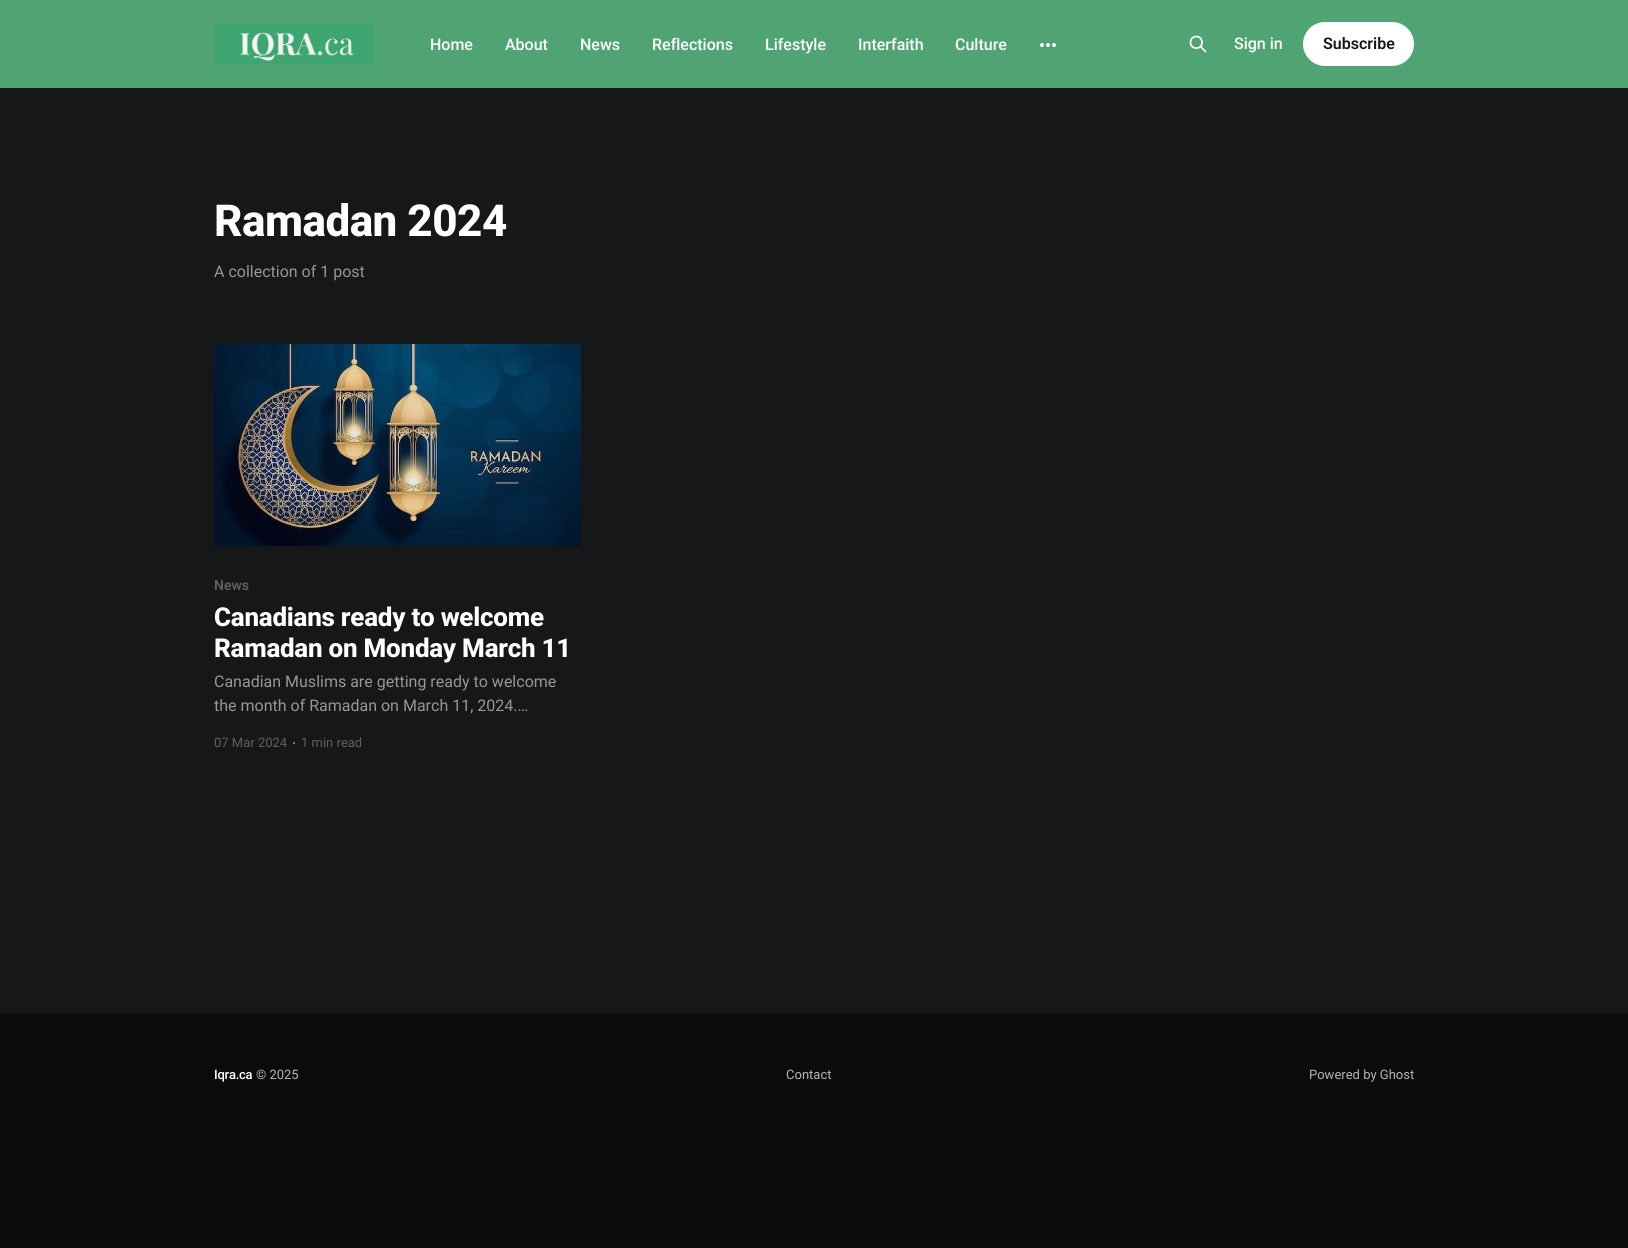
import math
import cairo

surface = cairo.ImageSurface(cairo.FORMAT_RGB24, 1628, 1248)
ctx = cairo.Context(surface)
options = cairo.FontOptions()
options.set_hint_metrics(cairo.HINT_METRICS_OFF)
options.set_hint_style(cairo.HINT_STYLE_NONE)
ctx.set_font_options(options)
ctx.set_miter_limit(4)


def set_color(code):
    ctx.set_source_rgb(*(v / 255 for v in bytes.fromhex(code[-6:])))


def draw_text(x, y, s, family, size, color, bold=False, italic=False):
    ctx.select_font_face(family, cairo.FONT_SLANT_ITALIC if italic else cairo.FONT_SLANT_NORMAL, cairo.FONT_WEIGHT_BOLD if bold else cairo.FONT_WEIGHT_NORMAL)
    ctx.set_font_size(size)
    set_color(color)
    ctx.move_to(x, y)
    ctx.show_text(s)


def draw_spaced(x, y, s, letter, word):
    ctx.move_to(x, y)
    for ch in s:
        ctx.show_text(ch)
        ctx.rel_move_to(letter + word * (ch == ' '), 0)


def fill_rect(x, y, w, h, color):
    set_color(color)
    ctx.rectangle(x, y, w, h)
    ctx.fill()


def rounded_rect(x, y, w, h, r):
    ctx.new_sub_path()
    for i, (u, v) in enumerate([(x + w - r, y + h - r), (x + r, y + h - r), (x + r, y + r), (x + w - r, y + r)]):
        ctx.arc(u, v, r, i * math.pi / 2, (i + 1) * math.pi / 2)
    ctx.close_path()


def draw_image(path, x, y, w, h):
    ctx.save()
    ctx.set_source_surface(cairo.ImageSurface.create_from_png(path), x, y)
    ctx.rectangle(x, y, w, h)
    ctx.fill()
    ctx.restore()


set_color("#151719")
ctx.paint()
fill_rect(0, 0, 1628, 88, "#50a474")
draw_image("assets/img1.png", 214, 24, 160, 40)
draw_text(430, 50, "Home", "Roboto Medium", 16, "#ffffff")
draw_text(505, 50, "About", "Roboto Medium", 16, "#ffffff")
draw_text(580, 50, "News", "Roboto Medium", 16, "#ffffff")
draw_text(652, 50, "Reflections", "Roboto Medium", 16, "#ffffff")
draw_text(765, 50, "Lifestyle", "Roboto Medium", 16, "#ffffff")
draw_text(858, 50, "Interfaith", "Roboto Medium", 16, "#ffffff")
draw_text(955, 50, "Culture", "Roboto Medium", 16, "#ffffff")
draw_image("assets/img2.png", 1040, 43, 16, 4)
ctx.new_path()
ctx.move_to(1205.5, 51.5)
ctx.line_to(1200.5, 46.5)
ctx.move_to(1202, 42.5)
ctx.curve_to(1202, 50, 1190.5, 50, 1190.5, 42.5)
ctx.curve_to(1190.5, 34.5, 1202, 34.5, 1202, 42.5)
ctx.close_path()
ctx.set_line_width(1.7)
ctx.set_line_cap(cairo.LINE_CAP_ROUND)
ctx.set_line_join(cairo.LINE_JOIN_ROUND)
ctx.stroke()
draw_text(1234, 49, "Sign in", "Roboto Medium", 16, "#ffffff")
rounded_rect(1303, 22, 111, 44, 22)
ctx.fill()
draw_text(1323, 49, "Subscribe", "Roboto SemiBold", 16, "#15171a")
ctx.select_font_face("Roboto ExtraBold")
ctx.set_font_size(44)
set_color("#ffffff")
draw_spaced(214, 236, "Ramadan 2024", -0.5, 0)
draw_text(214, 277, "A collection of 1 post", "Roboto", 16, "#979797")
draw_image("assets/img3.png", 214, 344, 367, 202)
draw_text(214, 590, "News", "Roboto SemiBold", 14, "#5f5f5f")
ctx.select_font_face("Roboto ExtraBold")
ctx.set_font_size(26)
set_color("#ffffff")
draw_spaced(214, 626, "Canadians ready to welcome", -0.25, 0)
draw_spaced(214, 657, "Ramadan on Monday March 11", -0.25, 0)
draw_text(214, 687, "Canadian Muslims are getting ready to welcome", "Roboto", 16, "#979797")
draw_text(214, 711, "the month of Ramadan on March 11, 2024.…", "Roboto", 16, "#979797")
draw_text(214, 747, "07 Mar 2024", "Roboto", 13, "#5f5f5f")
set_color("#979797")
ctx.new_path()
ctx.arc(294, 743, 1, 0, 2 * math.pi)
ctx.fill()
draw_text(301, 747, "1 min read", "Roboto", 13, "#5f5f5f")
fill_rect(0, 1014, 1628, 234, "#0a0b0c")
ctx.select_font_face("Roboto Medium")
set_color("#ffffff")
draw_spaced(214, 1079, "Iqra.ca", -0.25, 0)
draw_text(256, 1079, "© 2025", "Roboto", 13, "#b6b6b6")
draw_text(786, 1079, "Contact", "Roboto", 13, "#b6b6b6")
draw_text(1309, 1079, "Powered by Ghost", "Roboto", 13, "#b6b6b6")
surface.write_to_png("output.png")
